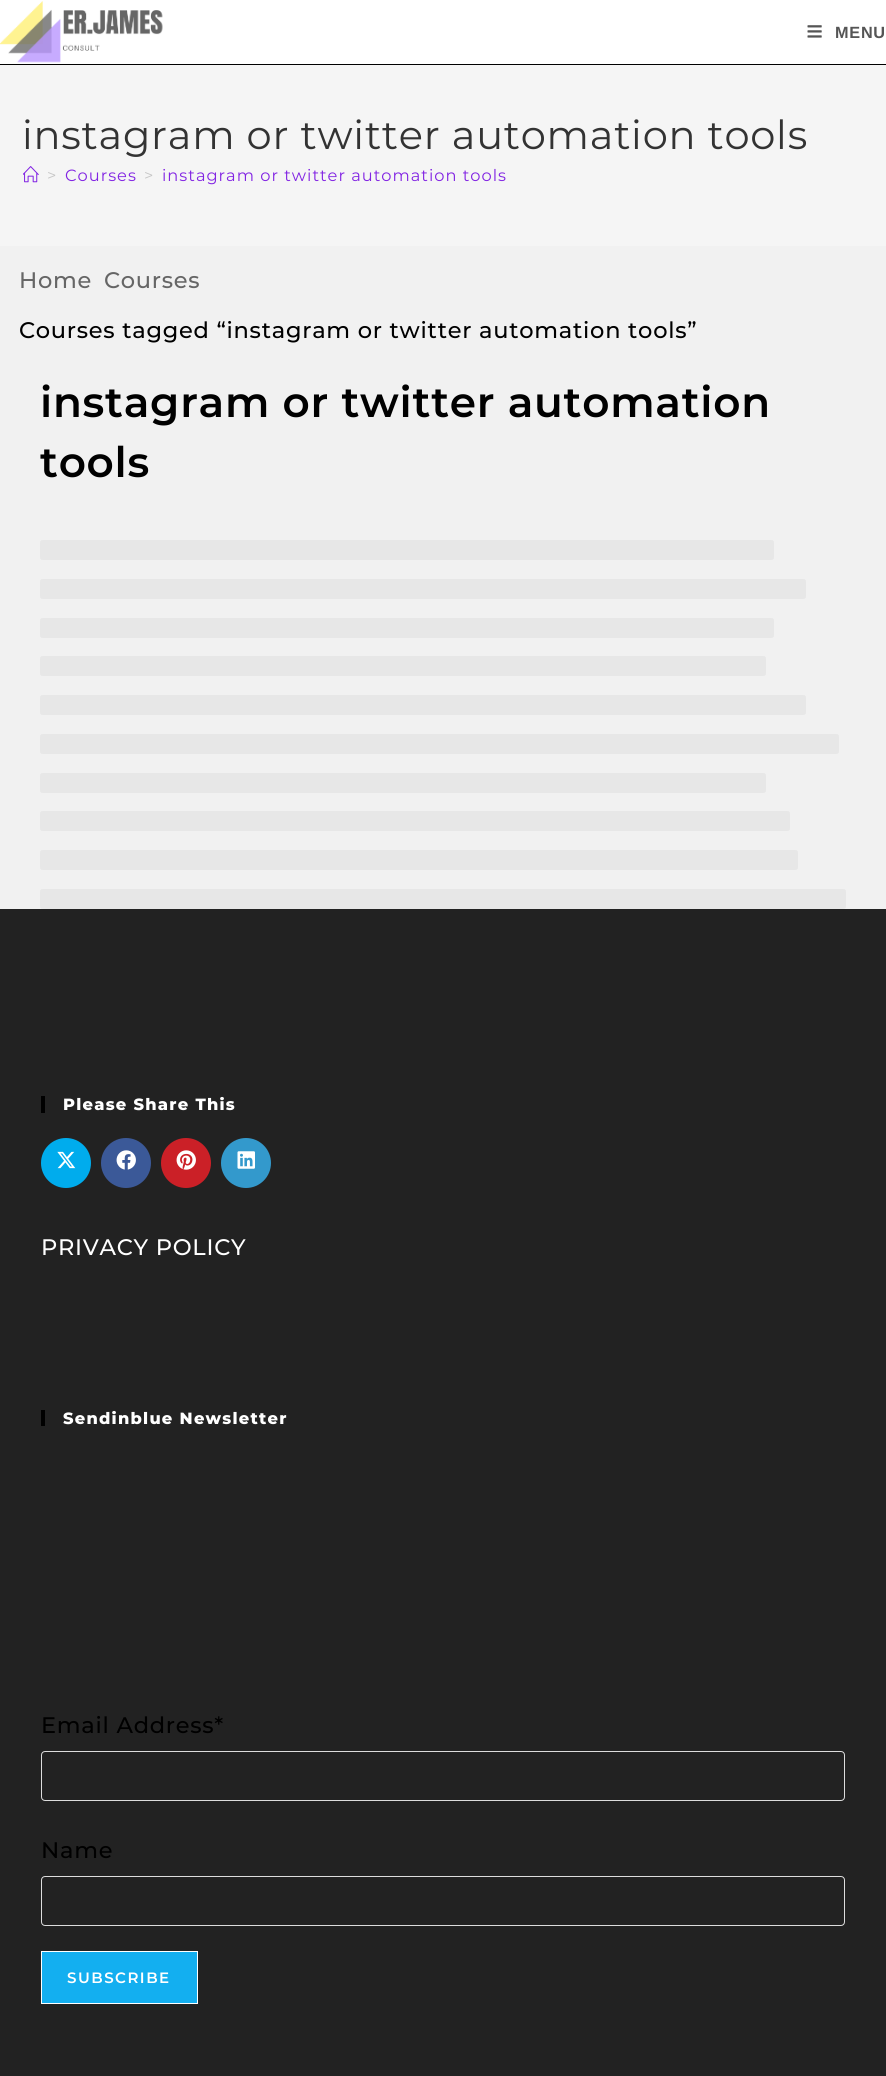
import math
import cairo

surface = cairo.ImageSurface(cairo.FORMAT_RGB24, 886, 2076)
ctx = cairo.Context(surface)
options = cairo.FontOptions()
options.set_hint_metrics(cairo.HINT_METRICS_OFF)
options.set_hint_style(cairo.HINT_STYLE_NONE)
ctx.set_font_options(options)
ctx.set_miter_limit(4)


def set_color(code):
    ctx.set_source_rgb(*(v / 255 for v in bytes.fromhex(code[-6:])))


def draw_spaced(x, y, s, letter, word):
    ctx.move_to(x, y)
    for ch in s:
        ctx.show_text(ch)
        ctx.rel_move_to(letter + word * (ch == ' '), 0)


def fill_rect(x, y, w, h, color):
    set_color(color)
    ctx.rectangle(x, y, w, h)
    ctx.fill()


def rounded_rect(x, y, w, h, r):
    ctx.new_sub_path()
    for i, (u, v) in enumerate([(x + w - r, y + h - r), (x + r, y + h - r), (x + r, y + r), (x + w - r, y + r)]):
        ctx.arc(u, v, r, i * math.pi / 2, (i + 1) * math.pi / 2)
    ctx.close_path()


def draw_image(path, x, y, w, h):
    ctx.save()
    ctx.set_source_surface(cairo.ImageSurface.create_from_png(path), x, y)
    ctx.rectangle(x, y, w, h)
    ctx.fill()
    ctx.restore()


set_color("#f1f1f1")
ctx.paint()
fill_rect(0, 0, 886, 64, "#ffffff")
fill_rect(0, 64, 886, 1, "#000000")
draw_image("assets/img1.png", 0, 1, 163, 62)
draw_image("assets/img2.png", 807, 25, 15, 13)
ctx.select_font_face("Liberation Sans", cairo.FONT_SLANT_NORMAL, cairo.FONT_WEIGHT_BOLD)
ctx.set_font_size(16.25)
set_color("#555555")
draw_spaced(835, 38, "MENU", 0.75, 0)
fill_rect(0, 65, 886, 181, "#f5f5f5")
ctx.select_font_face("Montserrat")
ctx.set_font_size(40)
set_color("#333333")
draw_spaced(22, 149, "instagram or twitter automation tools", 0.75, 0)
draw_image("assets/img3.png", 23, 166, 16, 17)
ctx.set_font_size(16.25)
set_color("#c6c6c6")
draw_spaced(47, 181, ">", 1, 0)
set_color("#8224e3")
draw_spaced(65, 181, "Courses", 1, 0)
set_color("#c6c6c6")
draw_spaced(144, 181, ">", 1, 0)
set_color("#8224e3")
draw_spaced(162, 181, "instagram or twitter automation tools", 1, 0)
ctx.select_font_face("Montserrat Medium")
ctx.set_font_size(22.5)
set_color("#666666")
draw_spaced(19, 288, "Home", 0.75, 0)
draw_spaced(104, 288, "Courses", 0.75, 0)
set_color("#000000")
draw_spaced(19, 338, "Courses tagged “instagram or twitter automation tools”", 0.75, 0)
ctx.select_font_face("Montserrat SemiBold")
ctx.set_font_size(42.2)
draw_spaced(40, 417, "instagram or twitter automation", 0.75, 0)
draw_spaced(40, 477, "tools", 0.75, 0)
gradient = cairo.LinearGradient(40, 550, 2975, 550)
gradient.add_color_stop_rgba(0.25, 0.906, 0.906, 0.906, 1)
gradient.add_color_stop_rgba(0.37, 0.839, 0.839, 0.839, 1)
gradient.add_color_stop_rgba(0.63, 0.906, 0.906, 0.906, 1)
ctx.set_source(gradient)
rounded_rect(40, 540, 734, 20, 2.5)
ctx.fill()
gradient = cairo.LinearGradient(40, 589, 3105, 589)
gradient.add_color_stop_rgba(0.25, 0.906, 0.906, 0.906, 1)
gradient.add_color_stop_rgba(0.37, 0.839, 0.839, 0.839, 1)
gradient.add_color_stop_rgba(0.63, 0.906, 0.906, 0.906, 1)
ctx.set_source(gradient)
rounded_rect(40, 579, 766, 20, 2.5)
ctx.fill()
gradient = cairo.LinearGradient(40, 628, 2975, 627)
gradient.add_color_stop_rgba(0.25, 0.906, 0.906, 0.906, 1)
gradient.add_color_stop_rgba(0.37, 0.839, 0.839, 0.839, 1)
gradient.add_color_stop_rgba(0.63, 0.906, 0.906, 0.906, 1)
ctx.set_source(gradient)
rounded_rect(40, 618, 734, 20, 2.5)
ctx.fill()
gradient = cairo.LinearGradient(40, 666, 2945, 666)
gradient.add_color_stop_rgba(0.25, 0.906, 0.906, 0.906, 1)
gradient.add_color_stop_rgba(0.37, 0.839, 0.839, 0.839, 1)
gradient.add_color_stop_rgba(0.63, 0.906, 0.906, 0.906, 1)
ctx.set_source(gradient)
rounded_rect(40, 656, 726, 20, 2.5)
ctx.fill()
gradient = cairo.LinearGradient(40, 705, 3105, 705)
gradient.add_color_stop_rgba(0.25, 0.906, 0.906, 0.906, 1)
gradient.add_color_stop_rgba(0.37, 0.839, 0.839, 0.839, 1)
gradient.add_color_stop_rgba(0.63, 0.906, 0.906, 0.906, 1)
ctx.set_source(gradient)
rounded_rect(40, 695, 766, 20, 2.5)
ctx.fill()
gradient = cairo.LinearGradient(40, 744, 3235, 744)
gradient.add_color_stop_rgba(0.25, 0.906, 0.906, 0.906, 1)
gradient.add_color_stop_rgba(0.37, 0.839, 0.839, 0.839, 1)
gradient.add_color_stop_rgba(0.63, 0.906, 0.906, 0.906, 1)
ctx.set_source(gradient)
rounded_rect(40, 734, 799, 20, 2.5)
ctx.fill()
gradient = cairo.LinearGradient(40, 783, 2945, 782)
gradient.add_color_stop_rgba(0.25, 0.906, 0.906, 0.906, 1)
gradient.add_color_stop_rgba(0.37, 0.839, 0.839, 0.839, 1)
gradient.add_color_stop_rgba(0.63, 0.906, 0.906, 0.906, 1)
ctx.set_source(gradient)
rounded_rect(40, 773, 726, 20, 2.5)
ctx.fill()
gradient = cairo.LinearGradient(40, 821, 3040, 821)
gradient.add_color_stop_rgba(0.25, 0.906, 0.906, 0.906, 1)
gradient.add_color_stop_rgba(0.37, 0.839, 0.839, 0.839, 1)
gradient.add_color_stop_rgba(0.63, 0.906, 0.906, 0.906, 1)
ctx.set_source(gradient)
rounded_rect(40, 811, 750, 20, 2.5)
ctx.fill()
gradient = cairo.LinearGradient(40, 860, 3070, 860)
gradient.add_color_stop_rgba(0.25, 0.906, 0.906, 0.906, 1)
gradient.add_color_stop_rgba(0.37, 0.839, 0.839, 0.839, 1)
gradient.add_color_stop_rgba(0.63, 0.906, 0.906, 0.906, 1)
ctx.set_source(gradient)
rounded_rect(40, 850, 758, 20, 2.5)
ctx.fill()
gradient = cairo.LinearGradient(40, 899, 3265, 899)
gradient.add_color_stop_rgba(0.25, 0.906, 0.906, 0.906, 1)
gradient.add_color_stop_rgba(0.37, 0.839, 0.839, 0.839, 1)
gradient.add_color_stop_rgba(0.63, 0.906, 0.906, 0.906, 1)
ctx.set_source(gradient)
rounded_rect(40, 889, 806, 20, 2.5)
ctx.fill()
fill_rect(0, 909, 886, 1167, "#222222")
fill_rect(41, 1096, 4, 17, "#000000")
ctx.select_font_face("Montserrat ExtraBold")
ctx.set_font_size(16.25)
set_color("#ffffff")
draw_spaced(63, 1110, "Please Share This", 1.25, 0)
set_color("#00aced")
ctx.new_path()
ctx.arc(66, 1163, 25, 0, 2 * math.pi)
ctx.fill()
draw_image("assets/img4.png", 57, 1151, 19, 18)
set_color("#3b5998")
ctx.arc(126, 1163, 25, 0, 2 * math.pi)
ctx.fill()
draw_image("assets/img5.png", 116, 1150, 20, 20)
set_color("#cb2027")
ctx.arc(186, 1163, 25, 0, 2 * math.pi)
ctx.fill()
draw_image("assets/img6.png", 176, 1150, 20, 20)
set_color("#3399cc")
ctx.arc(246, 1163, 25, 0, 2 * math.pi)
ctx.fill()
draw_image("assets/img7.png", 237, 1151, 18, 18)
ctx.select_font_face("Montserrat Medium")
ctx.set_font_size(22.5)
set_color("#ffffff")
draw_spaced(41, 1255, "PRIVACY POLICY", 0.75, 0)
fill_rect(41, 1410, 4, 16, "#000000")
ctx.select_font_face("Montserrat ExtraBold")
ctx.set_font_size(16.25)
set_color("#ffffff")
draw_spaced(63, 1424, "Sendinblue Newsletter", 1.25, 0)
ctx.select_font_face("Montserrat Medium")
ctx.set_font_size(22.5)
set_color("#000000")
draw_spaced(41, 1733, "Email Address*", 0.75, 0)
rounded_rect(41.5, 1751.5, 803, 49, 3.5)
set_color("#dddddd")
ctx.set_line_width(1)
ctx.stroke()
set_color("#000000")
draw_spaced(41, 1858, "Name", 0.75, 0)
rounded_rect(41.5, 1876.5, 803, 49, 3.5)
set_color("#dddddd")
ctx.stroke()
set_color("#13aff0")
ctx.rectangle(41.5, 1951.5, 156, 52)
ctx.fill_preserve()
set_color("#ffffff")
ctx.stroke()
ctx.select_font_face("Montserrat SemiBold")
ctx.set_font_size(15)
draw_spaced(67, 1983, "SUBSCRIBE", 1.5, 0)
surface.write_to_png("output.png")
